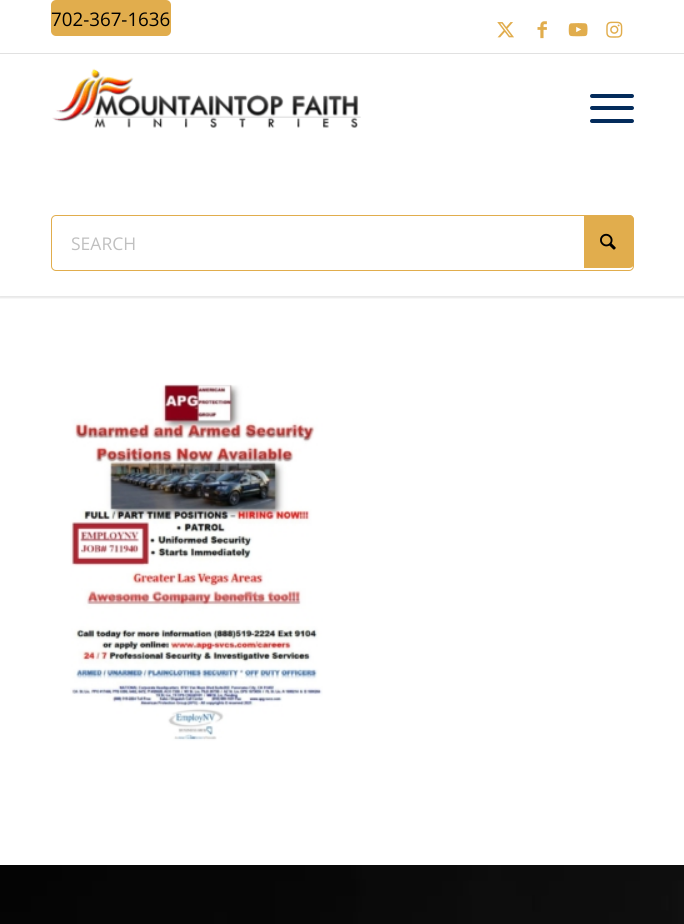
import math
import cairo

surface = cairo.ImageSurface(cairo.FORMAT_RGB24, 684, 924)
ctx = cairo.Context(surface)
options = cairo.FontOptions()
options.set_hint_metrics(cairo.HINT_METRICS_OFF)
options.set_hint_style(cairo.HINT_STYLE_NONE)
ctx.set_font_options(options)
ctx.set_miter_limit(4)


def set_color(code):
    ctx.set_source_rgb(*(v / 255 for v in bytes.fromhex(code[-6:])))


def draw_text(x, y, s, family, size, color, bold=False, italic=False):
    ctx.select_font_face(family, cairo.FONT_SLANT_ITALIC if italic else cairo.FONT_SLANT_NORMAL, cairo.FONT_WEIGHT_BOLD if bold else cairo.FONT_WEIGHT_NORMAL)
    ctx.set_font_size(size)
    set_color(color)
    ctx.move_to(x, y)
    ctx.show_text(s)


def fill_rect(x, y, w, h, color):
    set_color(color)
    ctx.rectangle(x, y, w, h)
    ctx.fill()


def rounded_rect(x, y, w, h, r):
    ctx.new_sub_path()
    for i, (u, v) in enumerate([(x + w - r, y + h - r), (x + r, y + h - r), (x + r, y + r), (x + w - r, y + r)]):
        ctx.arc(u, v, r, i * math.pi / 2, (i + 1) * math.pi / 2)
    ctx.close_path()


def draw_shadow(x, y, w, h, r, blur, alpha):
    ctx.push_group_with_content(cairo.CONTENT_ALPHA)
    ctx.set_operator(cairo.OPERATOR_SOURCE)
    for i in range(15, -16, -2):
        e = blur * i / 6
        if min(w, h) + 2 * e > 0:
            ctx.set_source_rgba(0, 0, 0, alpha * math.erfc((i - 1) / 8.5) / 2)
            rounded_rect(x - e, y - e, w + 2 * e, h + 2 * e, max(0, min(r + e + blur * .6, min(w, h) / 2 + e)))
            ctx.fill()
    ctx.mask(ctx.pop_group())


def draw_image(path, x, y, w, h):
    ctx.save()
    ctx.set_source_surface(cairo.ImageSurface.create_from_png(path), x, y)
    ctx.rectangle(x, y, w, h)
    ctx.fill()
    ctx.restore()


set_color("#ffffff")
ctx.paint()
ctx.save()
ctx.rectangle(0, 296, 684, 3)
ctx.clip()
set_color("#000000")
draw_shadow(-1, -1, 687, 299, 0, 1, 0.1)
ctx.restore()
fill_rect(0, 53, 684, 1, "#e1e1e1")
set_color("#e1ad4d")
rounded_rect(51, 0, 120, 36, 5)
ctx.fill()
draw_text(51, 26, "702-367-1636", "Open Sans", 18.75, "#000000")
draw_image("assets/img1.png", 497, 22, 17, 16)
draw_image("assets/img2.png", 537, 21, 10, 18)
draw_image("assets/img3.png", 568, 23, 20, 14)
draw_image("assets/img4.png", 606, 21, 17, 17)
draw_image("assets/img5.png", 52, 68, 309, 60)
set_color("#032b5b")
rounded_rect(590, 106, 44, 4, 2)
ctx.fill()
rounded_rect(590, 94, 44, 4, 2)
ctx.fill()
rounded_rect(590, 119, 44, 4, 2)
ctx.fill()
rounded_rect(51.5, 215.5, 582, 55, 4.5)
set_color("#e1ad4d")
ctx.set_line_width(1)
ctx.stroke()
draw_text(71, 250, "SEARCH", "Open Sans", 17.5, "#c0c0c0")
set_color("#e1ad4d")
ctx.new_path()
ctx.move_to(584, 215)
ctx.line_to(629, 215)
ctx.curve_to(632, 215, 634, 217, 634, 220)
ctx.line_to(634, 263)
ctx.curve_to(634, 266, 632, 268, 629, 268)
ctx.line_to(584, 268)
ctx.close_path()
ctx.fill()
draw_image("assets/img6.png", 600, 233, 16, 17)
draw_image("assets/img7.png", 70, 383, 253, 358)
draw_image("assets/img8.png", 0, 865, 684, 59)
surface.write_to_png("output.png")
